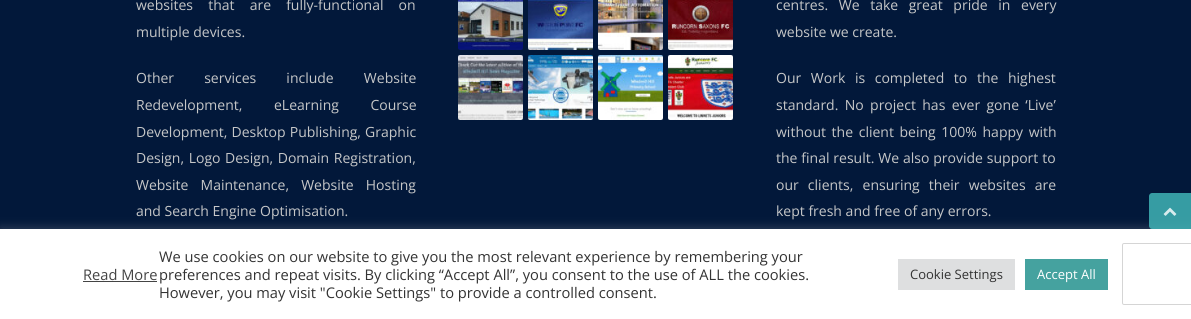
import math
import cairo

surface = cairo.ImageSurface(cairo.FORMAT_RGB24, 1191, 319)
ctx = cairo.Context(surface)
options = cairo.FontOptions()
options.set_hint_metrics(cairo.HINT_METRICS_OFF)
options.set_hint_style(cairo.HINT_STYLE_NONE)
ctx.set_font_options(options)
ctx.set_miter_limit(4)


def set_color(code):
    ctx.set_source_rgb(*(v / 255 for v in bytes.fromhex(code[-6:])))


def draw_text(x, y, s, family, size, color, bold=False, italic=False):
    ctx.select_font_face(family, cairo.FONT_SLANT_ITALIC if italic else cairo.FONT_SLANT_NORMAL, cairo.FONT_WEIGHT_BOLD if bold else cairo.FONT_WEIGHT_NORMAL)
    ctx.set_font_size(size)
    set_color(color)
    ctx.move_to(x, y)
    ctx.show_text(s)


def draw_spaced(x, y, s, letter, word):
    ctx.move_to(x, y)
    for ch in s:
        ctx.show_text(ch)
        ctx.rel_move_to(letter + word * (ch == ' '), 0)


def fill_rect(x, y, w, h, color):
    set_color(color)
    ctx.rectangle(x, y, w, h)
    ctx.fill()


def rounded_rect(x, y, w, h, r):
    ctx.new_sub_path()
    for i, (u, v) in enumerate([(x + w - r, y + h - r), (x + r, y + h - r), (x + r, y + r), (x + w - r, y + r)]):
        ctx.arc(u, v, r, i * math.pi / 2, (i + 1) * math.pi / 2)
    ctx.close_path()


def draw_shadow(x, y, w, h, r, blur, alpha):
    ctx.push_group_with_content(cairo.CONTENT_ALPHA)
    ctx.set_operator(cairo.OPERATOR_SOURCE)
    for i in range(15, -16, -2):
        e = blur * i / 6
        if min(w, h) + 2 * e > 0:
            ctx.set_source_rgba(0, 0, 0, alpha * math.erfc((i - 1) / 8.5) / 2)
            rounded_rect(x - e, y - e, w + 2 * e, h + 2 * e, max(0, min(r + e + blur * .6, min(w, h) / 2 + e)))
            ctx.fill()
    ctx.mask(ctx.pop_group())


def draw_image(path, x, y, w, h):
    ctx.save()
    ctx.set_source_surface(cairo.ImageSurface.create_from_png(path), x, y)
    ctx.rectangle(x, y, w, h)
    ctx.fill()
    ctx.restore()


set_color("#02183a")
ctx.paint()
ctx.select_font_face("Open Sans")
ctx.set_font_size(14)
set_color("#c6c7c8")
draw_spaced(136, 10, "websites that are fully-functional on", 0, 11.5)
draw_text(136, 37, "multiple devices.", "Open Sans", 14, "#c6c7c8")
draw_spaced(136, 83, "Other services include Website", 0, 26.5)
draw_spaced(136, 110, "Redevelopment, eLearning Course", 0, 28)
draw_spaced(136, 137, "Development, Desktop Publishing, Graphic", 0, 0.5)
draw_spaced(136, 163, "Design, Logo Design, Domain Registration,", 0, 1)
draw_spaced(136, 190, "Website Maintenance, Website Hosting", 0, 8.5)
draw_text(136, 216, "and Search Engine Optimisation.", "Open Sans", 14, "#c6c7c8")
draw_image("assets/img1.png", 458, 0, 65, 50)
draw_image("assets/img2.png", 528, 0, 65, 50)
draw_image("assets/img3.png", 598, 0, 65, 50)
draw_image("assets/img4.png", 668, 0, 65, 50)
draw_image("assets/img5.png", 458, 55, 65, 65)
draw_image("assets/img6.png", 528, 55, 65, 65)
draw_image("assets/img7.png", 598, 55, 65, 65)
draw_image("assets/img8.png", 668, 55, 65, 65)
draw_spaced(776, 10, "centres. We take great pride in every", 0, 7)
draw_text(776, 37, "website we create.", "Open Sans", 14, "#c6c7c8")
draw_spaced(776, 83, "Our Work is completed to the highest", 0, 6)
draw_spaced(776, 110, "standard. No project has ever gone ‘Live’", 0, 2.75)
draw_spaced(776, 137, "without the client being 100% happy with", 0, 2)
draw_spaced(776, 163, "the final result. We also provide support to", 0, 0.25)
draw_spaced(776, 190, "our clients, ensuring their websites are", 0, 5.5)
draw_text(776, 216, "kept fresh and free of any errors.", "Open Sans", 14, "#c6c7c8")
set_color("#acabab")
draw_shadow(0, 228, 1191, 90, 0, 5, 0.3)
ctx.set_source_rgba(0.267, 0.741, 0.741, 0.8)
ctx.new_path()
ctx.move_to(1152, 193)
ctx.line_to(1191, 193)
ctx.line_to(1191, 229)
ctx.line_to(1152, 229)
ctx.curve_to(1150.5, 229, 1149, 227.5, 1149, 226)
ctx.line_to(1149, 196)
ctx.curve_to(1149, 194.5, 1150.5, 193, 1152, 193)
ctx.close_path()
ctx.fill()
draw_image("assets/img9.png", 1163, 207, 14, 9)
fill_rect(0, 229, 1191, 90, "#ffffff")
draw_text(83, 280, "Read More", "Open Sans", 14.65, "#444444")
fill_rect(83, 281, 74, 1, "#444444")
draw_text(159, 262, "We use cookies on our website to give you the most relevant experience by remembering your", "Open Sans", 14.65, "#333333")
draw_text(159, 280, "preferences and repeat visits. By clicking “Accept All”, you consent to the use of ALL the cookies.", "Open Sans", 14.65, "#333333")
draw_text(159, 298, "However, you may visit \"Cookie Settings\" to provide a controlled consent.", "Open Sans", 14.65, "#333333")
fill_rect(898, 259, 117, 31, "#dedfe0")
draw_text(910, 279, "Cookie Settings", "Open Sans", 13, "#333333")
fill_rect(1025, 259, 83, 31, "#45a29f")
draw_text(1037, 279, "Accept All", "Open Sans", 13, "#ffffff")
rounded_rect(1122.5, 243.5, 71, 61, 1.5)
set_color("#d5d5d5")
ctx.set_line_width(1)
ctx.stroke()
surface.write_to_png("output.png")
